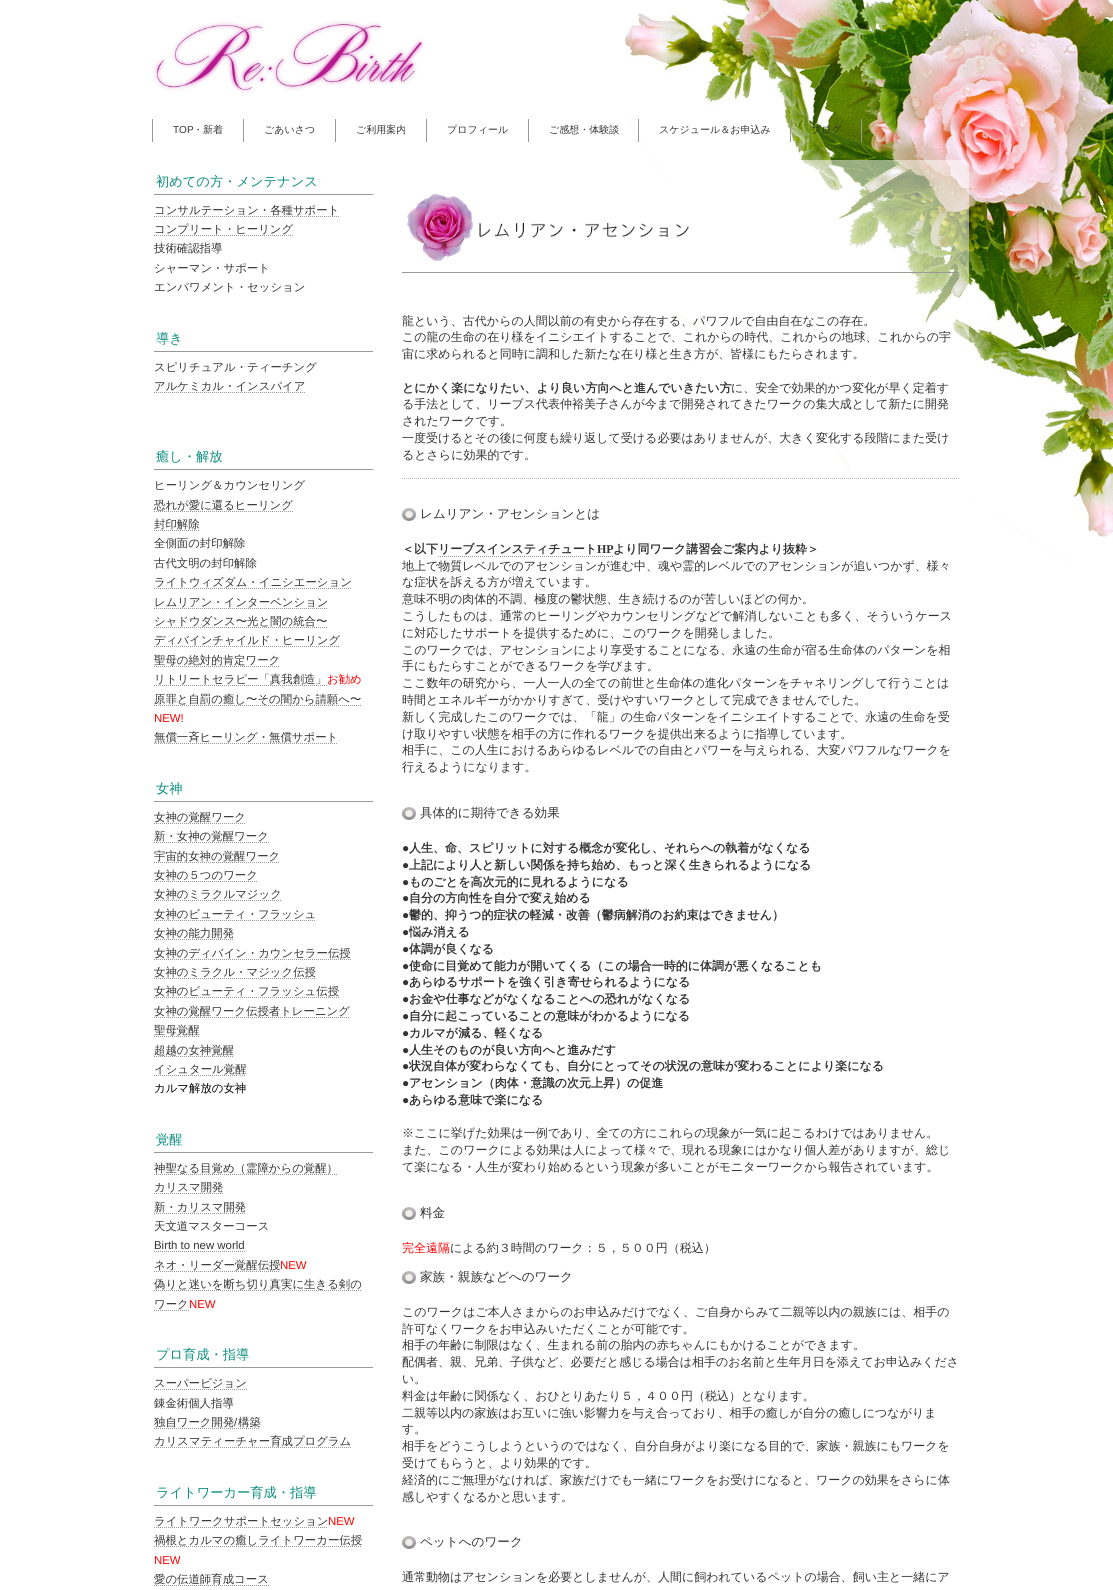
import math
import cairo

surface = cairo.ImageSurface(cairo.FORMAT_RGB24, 1113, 1590)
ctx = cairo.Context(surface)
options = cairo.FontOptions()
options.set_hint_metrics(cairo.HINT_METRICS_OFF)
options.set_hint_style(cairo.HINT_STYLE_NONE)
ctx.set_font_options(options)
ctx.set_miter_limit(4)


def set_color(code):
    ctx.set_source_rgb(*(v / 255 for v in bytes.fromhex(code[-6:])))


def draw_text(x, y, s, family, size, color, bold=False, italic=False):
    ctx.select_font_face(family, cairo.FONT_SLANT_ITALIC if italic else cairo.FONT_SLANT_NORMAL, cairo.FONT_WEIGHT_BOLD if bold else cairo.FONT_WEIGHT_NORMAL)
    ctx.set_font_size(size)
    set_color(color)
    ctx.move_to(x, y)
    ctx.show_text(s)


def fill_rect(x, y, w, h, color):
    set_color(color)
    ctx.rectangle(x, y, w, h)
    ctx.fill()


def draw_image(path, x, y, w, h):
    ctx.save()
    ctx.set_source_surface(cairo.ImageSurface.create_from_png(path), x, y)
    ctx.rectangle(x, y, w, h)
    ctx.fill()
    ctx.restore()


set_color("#ffffff")
ctx.paint()
draw_image("assets/img1.png", 625, 0, 488, 562)
draw_image("assets/img2.png", 153, 20, 272, 74)
fill_rect(243, 119, 1, 23, "#999999")
fill_rect(152, 119, 1, 23, "#999999")
draw_text(173, 133, "TOP", "Liberation Sans", 10, "#333333")
draw_text(193, 133, "・新着", "WenQuanYi Zen Hei Medium", 10, "#333333")
fill_rect(335, 119, 1, 23, "#999999")
draw_text(264, 133, "ごあいさつ", "WenQuanYi Zen Hei Medium", 10, "#333333")
fill_rect(426, 119, 1, 23, "#999999")
draw_text(356, 133, "ご利用案内", "WenQuanYi Zen Hei Medium", 10, "#333333")
fill_rect(528, 119, 1, 23, "#999999")
draw_text(447, 133, "プロフィール", "WenQuanYi Zen Hei Medium", 10, "#333333")
fill_rect(638, 119, 1, 23, "#999999")
draw_text(549, 133, "ご感想・体験談", "WenQuanYi Zen Hei Medium", 10, "#333333")
fill_rect(790, 119, 1, 23, "#999999")
draw_text(659, 133, "スケジュール＆お申込み", "WenQuanYi Zen Hei Medium", 10, "#333333")
fill_rect(861, 119, 1, 23, "#999999")
draw_text(811, 133, "ブログ", "WenQuanYi Zen Hei Medium", 10, "#333333")
fill_rect(154, 194, 219, 1, "#999999")
draw_text(156, 186, "初めての方・メンテナンス", "WenQuanYi Zen Hei Medium", 13.25, "#0c8e7f")
draw_text(154, 214, "コンサルテーション・各種サポート", "WenQuanYi Zen Hei Medium", 11.4, "#333333")
ctx.new_path()
ctx.move_to(154, 216.5)
ctx.line_to(339, 216.5)
set_color("#999999")
ctx.set_line_width(1)
ctx.set_dash([1, 1])
ctx.stroke()
draw_text(154, 233, "コンプリート・ヒーリング", "WenQuanYi Zen Hei Medium", 11.4, "#333333")
ctx.new_path()
ctx.move_to(154, 235.5)
ctx.line_to(293, 235.5)
set_color("#999999")
ctx.stroke()
draw_text(154, 252, "技術確認指導", "WenQuanYi Zen Hei Medium", 11.4, "#333333")
draw_text(154, 272, "シャーマン・サポート", "WenQuanYi Zen Hei Medium", 11.4, "#333333")
draw_text(154, 291, "エンパワメント・セッション", "WenQuanYi Zen Hei Medium", 11.4, "#333333")
fill_rect(154, 351, 219, 1, "#999999")
draw_text(156, 343, "導き", "WenQuanYi Zen Hei Medium", 13.25, "#0c8e7f")
draw_text(154, 371, "スピリチュアル・ティーチング", "WenQuanYi Zen Hei Medium", 11.4, "#333333")
draw_text(154, 390, "アルケミカル・インスパイア", "WenQuanYi Zen Hei Medium", 11.4, "#333333")
ctx.new_path()
ctx.move_to(154, 392.5)
ctx.line_to(305, 392.5)
set_color("#999999")
ctx.stroke()
fill_rect(154, 469, 219, 1, "#999999")
draw_text(156, 461, "癒し・解放", "WenQuanYi Zen Hei Medium", 13.25, "#0c8e7f")
draw_text(154, 489, "ヒーリング＆カウンセリング", "WenQuanYi Zen Hei Medium", 11.4, "#333333")
draw_text(154, 509, "恐れが愛に還るヒーリング", "WenQuanYi Zen Hei Medium", 11.4, "#333333")
ctx.new_path()
ctx.move_to(154, 511.5)
ctx.line_to(293, 511.5)
set_color("#999999")
ctx.stroke()
draw_text(154, 528, "封印解除", "WenQuanYi Zen Hei Medium", 11.4, "#333333")
ctx.new_path()
ctx.move_to(154, 530.5)
ctx.line_to(200, 530.5)
set_color("#999999")
ctx.stroke()
draw_text(154, 547, "全側面の封印解除", "WenQuanYi Zen Hei Medium", 11.4, "#333333")
draw_text(154, 567, "古代文明の封印解除", "WenQuanYi Zen Hei Medium", 11.4, "#333333")
draw_text(154, 586, "ライトウィズダム・イニシエーション", "WenQuanYi Zen Hei Medium", 11.4, "#333333")
ctx.new_path()
ctx.move_to(154, 588.5)
ctx.line_to(352, 588.5)
set_color("#999999")
ctx.stroke()
draw_text(154, 606, "レムリアン・インターベンション", "WenQuanYi Zen Hei Medium", 11.4, "#333333")
ctx.new_path()
ctx.move_to(154, 608.5)
ctx.line_to(328, 608.5)
set_color("#999999")
ctx.stroke()
draw_text(154, 625, "シャドウダンス〜光と闇の統合〜", "WenQuanYi Zen Hei Medium", 11.4, "#333333")
ctx.new_path()
ctx.move_to(154, 627.5)
ctx.line_to(327, 627.5)
set_color("#999999")
ctx.stroke()
draw_text(154, 644, "ディバインチャイルド・ヒーリング", "WenQuanYi Zen Hei Medium", 11.4, "#333333")
ctx.new_path()
ctx.move_to(154, 646.5)
ctx.line_to(340, 646.5)
set_color("#999999")
ctx.stroke()
draw_text(154, 664, "聖母の絶対的肯定ワーク", "WenQuanYi Zen Hei Medium", 11.4, "#333333")
ctx.new_path()
ctx.move_to(154, 666.5)
ctx.line_to(280, 666.5)
set_color("#999999")
ctx.stroke()
draw_text(154, 683, "リトリートセラピー「真我創造」", "WenQuanYi Zen Hei Medium", 11.4, "#333333")
ctx.new_path()
ctx.move_to(154, 685.5)
ctx.line_to(327, 685.5)
set_color("#999999")
ctx.stroke()
draw_text(327, 683, "お勧め", "WenQuanYi Zen Hei Medium", 11.4, "#ff0000")
draw_text(154, 703, "原罪と自罰の癒し〜その闇から請願へ〜", "WenQuanYi Zen Hei Medium", 11.4, "#333333")
ctx.new_path()
ctx.move_to(154, 705.5)
ctx.line_to(361, 705.5)
set_color("#999999")
ctx.stroke()
draw_text(154, 722, "NEW!", "Liberation Sans", 11.4, "#ff0000")
draw_text(154, 741, "無償一斉ヒーリング・無償サポート", "WenQuanYi Zen Hei Medium", 11.4, "#333333")
ctx.new_path()
ctx.move_to(154, 743.5)
ctx.line_to(338, 743.5)
set_color("#999999")
ctx.stroke()
fill_rect(154, 801, 219, 1, "#999999")
draw_text(156, 793, "女神", "WenQuanYi Zen Hei Medium", 13.25, "#0c8e7f")
draw_text(154, 821, "女神の覚醒ワーク", "WenQuanYi Zen Hei Medium", 11.4, "#333333")
ctx.new_path()
ctx.move_to(154, 823.5)
ctx.line_to(246, 823.5)
set_color("#999999")
ctx.stroke()
draw_text(154, 840, "新・女神の覚醒ワーク", "WenQuanYi Zen Hei Medium", 11.4, "#333333")
ctx.new_path()
ctx.move_to(154, 842.5)
ctx.line_to(269, 842.5)
set_color("#999999")
ctx.stroke()
draw_text(154, 860, "宇宙的女神の覚醒ワーク", "WenQuanYi Zen Hei Medium", 11.4, "#333333")
ctx.new_path()
ctx.move_to(154, 862.5)
ctx.line_to(280, 862.5)
set_color("#999999")
ctx.stroke()
draw_text(154, 879, "女神の５つのワーク", "WenQuanYi Zen Hei Medium", 11.4, "#333333")
ctx.new_path()
ctx.move_to(154, 881.5)
ctx.line_to(258, 881.5)
set_color("#999999")
ctx.stroke()
draw_text(154, 898, "女神のミラクルマジック", "WenQuanYi Zen Hei Medium", 11.4, "#333333")
ctx.new_path()
ctx.move_to(154, 900.5)
ctx.line_to(282, 900.5)
set_color("#999999")
ctx.stroke()
draw_text(154, 918, "女神のビューティ・フラッシュ", "WenQuanYi Zen Hei Medium", 11.4, "#333333")
ctx.new_path()
ctx.move_to(154, 920.5)
ctx.line_to(316, 920.5)
set_color("#999999")
ctx.stroke()
draw_text(154, 937, "女神の能力開発", "WenQuanYi Zen Hei Medium", 11.4, "#333333")
ctx.new_path()
ctx.move_to(154, 939.5)
ctx.line_to(234, 939.5)
set_color("#999999")
ctx.stroke()
draw_text(154, 957, "女神のディバイン・カウンセラー伝授", "WenQuanYi Zen Hei Medium", 11.4, "#333333")
ctx.new_path()
ctx.move_to(154, 959.5)
ctx.line_to(351, 959.5)
set_color("#999999")
ctx.stroke()
draw_text(154, 976, "女神のミラクル・マジック伝授", "WenQuanYi Zen Hei Medium", 11.4, "#333333")
ctx.new_path()
ctx.move_to(154, 978.5)
ctx.line_to(316, 978.5)
set_color("#999999")
ctx.stroke()
draw_text(154, 995, "女神のビューティ・フラッシュ伝授", "WenQuanYi Zen Hei Medium", 11.4, "#333333")
ctx.new_path()
ctx.move_to(154, 997.5)
ctx.line_to(339, 997.5)
set_color("#999999")
ctx.stroke()
draw_text(154, 1015, "女神の覚醒ワーク伝授者トレーニング", "WenQuanYi Zen Hei Medium", 11.4, "#333333")
ctx.new_path()
ctx.move_to(154, 1017.5)
ctx.line_to(350, 1017.5)
set_color("#999999")
ctx.stroke()
draw_text(154, 1034, "聖母覚醒", "WenQuanYi Zen Hei Medium", 11.4, "#333333")
ctx.new_path()
ctx.move_to(154, 1036.5)
ctx.line_to(200, 1036.5)
set_color("#999999")
ctx.stroke()
draw_text(154, 1054, "超越の女神覚醒", "WenQuanYi Zen Hei Medium", 11.4, "#333333")
ctx.new_path()
ctx.move_to(154, 1056.5)
ctx.line_to(234, 1056.5)
set_color("#999999")
ctx.stroke()
draw_text(154, 1073, "イシュタール覚醒", "WenQuanYi Zen Hei Medium", 11.4, "#333333")
ctx.new_path()
ctx.move_to(154, 1075.5)
ctx.line_to(246, 1075.5)
set_color("#999999")
ctx.stroke()
draw_text(154, 1092, "カルマ解放の女神", "WenQuanYi Zen Hei Medium", 11.4, "#000000")
fill_rect(154, 1152, 219, 1, "#999999")
draw_text(156, 1144, "覚醒", "WenQuanYi Zen Hei Medium", 13.25, "#0c8e7f")
ctx.new_path()
ctx.move_to(154, 1174.5)
ctx.line_to(338, 1174.5)
set_color("#999999")
ctx.stroke()
draw_text(154, 1172, "神聖なる目覚め（霊障からの覚醒）", "WenQuanYi Zen Hei Medium", 11.4, "#333333")
draw_text(154, 1191, "カリスマ開発", "WenQuanYi Zen Hei Medium", 11.4, "#333333")
ctx.new_path()
ctx.move_to(154, 1193.5)
ctx.line_to(223, 1193.5)
set_color("#999999")
ctx.stroke()
draw_text(154, 1211, "新・カリスマ開発", "WenQuanYi Zen Hei Medium", 11.4, "#333333")
ctx.new_path()
ctx.move_to(154, 1213.5)
ctx.line_to(246, 1213.5)
set_color("#999999")
ctx.stroke()
draw_text(154, 1230, "天文道マスターコース", "WenQuanYi Zen Hei Medium", 11.4, "#333333")
draw_text(154, 1249, "Birth to new world", "Liberation Sans", 11.4, "#333333")
ctx.new_path()
ctx.move_to(154, 1251.5)
ctx.line_to(245, 1251.5)
set_color("#999999")
ctx.stroke()
draw_text(154, 1269, "ネオ・リーダー覚醒伝授", "WenQuanYi Zen Hei Medium", 11.4, "#333333")
ctx.new_path()
ctx.move_to(154, 1271.5)
ctx.line_to(280, 1271.5)
set_color("#999999")
ctx.stroke()
draw_text(280, 1269, "NEW", "Liberation Sans", 11.4, "#ff0000")
draw_text(154, 1288, "偽りと迷いを断ち切り真実に生きる剣の", "WenQuanYi Zen Hei Medium", 11.4, "#333333")
ctx.new_path()
ctx.move_to(154, 1290.5)
ctx.line_to(362, 1290.5)
set_color("#999999")
ctx.stroke()
draw_text(154, 1308, "ワーク", "WenQuanYi Zen Hei Medium", 11.4, "#333333")
ctx.new_path()
ctx.move_to(154, 1310.5)
ctx.line_to(189, 1310.5)
set_color("#999999")
ctx.stroke()
draw_text(189, 1308, "NEW", "Liberation Sans", 11.4, "#ff0000")
fill_rect(154, 1367, 219, 1, "#999999")
draw_text(156, 1359, "プロ育成・指導", "WenQuanYi Zen Hei Medium", 13.25, "#0c8e7f")
draw_text(154, 1387, "スーパービジョン", "WenQuanYi Zen Hei Medium", 11.4, "#333333")
ctx.new_path()
ctx.move_to(154, 1389.5)
ctx.line_to(247, 1389.5)
set_color("#999999")
ctx.stroke()
draw_text(154, 1407, "錬金術個人指導", "WenQuanYi Zen Hei Medium", 11.4, "#333333")
draw_text(154, 1426, "独自ワーク開発", "WenQuanYi Zen Hei Medium", 11.4, "#333333")
ctx.new_path()
ctx.move_to(154, 1428.5)
ctx.line_to(260, 1428.5)
set_color("#999999")
ctx.stroke()
draw_text(234, 1426, "/", "Liberation Sans", 11.4, "#333333")
draw_text(238, 1426, "構築", "WenQuanYi Zen Hei Medium", 11.4, "#333333")
draw_text(154, 1445, "カリスマティーチャー育成プログラム", "WenQuanYi Zen Hei Medium", 11.4, "#333333")
ctx.new_path()
ctx.move_to(154, 1447.5)
ctx.line_to(351, 1447.5)
set_color("#999999")
ctx.stroke()
fill_rect(154, 1505, 219, 1, "#999999")
draw_text(156, 1497, "ライトワーカー育成・指導", "WenQuanYi Zen Hei Medium", 13.25, "#0c8e7f")
draw_text(154, 1525, "ライトワークサポートセッション", "WenQuanYi Zen Hei Medium", 11.4, "#333333")
ctx.new_path()
ctx.move_to(154, 1527.5)
ctx.line_to(328, 1527.5)
set_color("#999999")
ctx.stroke()
draw_text(328, 1525, "NEW", "Liberation Sans", 11.4, "#ff0000")
draw_text(154, 1544, "禍根とカルマの癒しライトワーカー伝授", "WenQuanYi Zen Hei Medium", 11.4, "#333333")
ctx.new_path()
ctx.move_to(154, 1546.5)
ctx.line_to(362, 1546.5)
set_color("#999999")
ctx.stroke()
draw_text(154, 1564, "NEW", "Liberation Sans", 11.4, "#ff0000")
draw_text(154, 1583, "愛の伝道師育成コース", "WenQuanYi Zen Hei Medium", 11.4, "#333333")
ctx.new_path()
ctx.move_to(154, 1585.5)
ctx.line_to(269, 1585.5)
set_color("#999999")
ctx.stroke()
ctx.set_source_rgba(1, 1, 1, 0.5)
ctx.rectangle(801, 160, 160, 8)
ctx.fill()
draw_image("assets/img3.png", 961, 160, 8, 8)
ctx.rectangle(674, 168, 295, 302)
ctx.fill()
fill_rect(402, 272, 557, 1, "#999999")
draw_image("assets/img4.png", 407, 194, 282, 68)
draw_text(402, 325, "龍という、古代からの人間以前の有史から存在する、パワフルで自由自在なこの存在。", "WenQuanYi Zen Hei Medium", 12, "#333333")
draw_text(402, 341, "この龍の生命の在り様をイニシエイトすることで、これからの時代、これからの地球、これからの宇", "WenQuanYi Zen Hei Medium", 12, "#333333")
draw_text(402, 358, "宙に求められると同時に調和した新たな在り様と生き方が、皆様にもたらされます。", "WenQuanYi Zen Hei Medium", 12, "#333333")
draw_text(402, 392, "とにかく楽になりたい、より良い方向へと進んでいきたい方", "WenQuanYi Zen Hei", 12, "#333333", bold=True)
draw_text(731, 392, "に、安全で効果的かつ変化が早く定着す", "WenQuanYi Zen Hei Medium", 12, "#333333")
draw_text(402, 408, "る手法として、リーブス代表仲裕美子さんが今まで開発されてきたワークの集大成として新たに開発", "WenQuanYi Zen Hei Medium", 12, "#333333")
draw_text(402, 425, "されたワークです。", "WenQuanYi Zen Hei Medium", 12, "#333333")
draw_text(402, 442, "一度受けるとその後に何度も繰り返して受ける必要はありませんが、大きく変化する段階にまた受け", "WenQuanYi Zen Hei Medium", 12, "#333333")
draw_text(402, 459, "るとさらに効果的です。", "WenQuanYi Zen Hei Medium", 12, "#333333")
draw_image("assets/img5.png", 402, 478, 557, 1)
draw_image("assets/img6.png", 402, 508, 14, 13)
draw_text(420, 518, "レムリアン・アセンションとは", "WenQuanYi Zen Hei Medium", 12.6, "#333333")
draw_text(402, 553, "＜以下リーブスインスティチュート", "WenQuanYi Zen Hei", 12, "#333333", bold=True)
draw_text(597, 553, "HP", "Liberation Serif", 12, "#333333", bold=True)
ctx.new_path()
ctx.move_to(438, 556.5)
ctx.line_to(613, 556.5)
set_color("#999999")
ctx.stroke()
draw_text(613, 553, "より同ワーク講習会ご案内より抜粋＞", "WenQuanYi Zen Hei", 12, "#333333", bold=True)
draw_text(402, 570, "地上で物質レベルでのアセンションが進む中、魂や霊的レベルでのアセンションが追いつかず、様々", "WenQuanYi Zen Hei Medium", 12, "#333333")
draw_text(402, 586, "な症状を訴える方が増えています。", "WenQuanYi Zen Hei Medium", 12, "#333333")
draw_text(402, 603, "意味不明の肉体的不調、極度の鬱状態、生き続けるのが苦しいほどの何か。", "WenQuanYi Zen Hei Medium", 12, "#333333")
draw_text(402, 620, "こうしたものは、通常のヒーリングやカウンセリングなどで解消しないことも多く、そういうケース", "WenQuanYi Zen Hei Medium", 12, "#333333")
draw_text(402, 637, "に対応したサポートを提供するために、このワークを開発しました。", "WenQuanYi Zen Hei Medium", 12, "#333333")
draw_text(402, 654, "このワークでは、アセンションにより享受することになる、永遠の生命が宿る生命体のパターンを相", "WenQuanYi Zen Hei Medium", 12, "#333333")
draw_text(402, 670, "手にもたらすことができるワークを学びます。", "WenQuanYi Zen Hei Medium", 12, "#333333")
draw_text(402, 687, "ここ数年の研究から、一人一人の全ての前世と生命体の進化パターンをチャネリングして行うことは", "WenQuanYi Zen Hei Medium", 12, "#333333")
draw_text(402, 704, "時間とエネルギーがかかりすぎて、受けやすいワークとして完成できませんでした。", "WenQuanYi Zen Hei Medium", 12, "#333333")
draw_text(402, 721, "新しく完成したこのワークでは、「龍」の生命パターンをイニシエイトすることで、永遠の生命を受", "WenQuanYi Zen Hei Medium", 12, "#333333")
draw_text(402, 738, "け取りやすい状態を相手の方に作れるワークを提供出来るように指導しています。", "WenQuanYi Zen Hei Medium", 12, "#333333")
draw_text(402, 754, "相手に、この人生におけるあらゆるレベルでの自由とパワーを与えられる、大変パワフルなワークを", "WenQuanYi Zen Hei Medium", 12, "#333333")
draw_text(402, 771, "行えるようになります。", "WenQuanYi Zen Hei Medium", 12, "#333333")
draw_image("assets/img6.png", 402, 807, 14, 13)
draw_text(420, 817, "具体的に期待できる効果", "WenQuanYi Zen Hei Medium", 12.6, "#333333")
draw_text(402, 852, "●", "Liberation Serif", 12, "#333333", bold=True)
draw_text(409, 852, "人生、命、スピリットに対する概念が変化し、それらへの執着がなくなる", "WenQuanYi Zen Hei", 12, "#333333", bold=True)
draw_text(402, 869, "●", "Liberation Serif", 12, "#333333", bold=True)
draw_text(409, 869, "上記により人と新しい関係を持ち始め、もっと深く生きられるようになる", "WenQuanYi Zen Hei", 12, "#333333", bold=True)
draw_text(402, 886, "●", "Liberation Serif", 12, "#333333", bold=True)
draw_text(409, 886, "ものごとを高次元的に見れるようになる", "WenQuanYi Zen Hei", 12, "#333333", bold=True)
draw_text(402, 902, "●", "Liberation Serif", 12, "#333333", bold=True)
draw_text(409, 902, "自分の方向性を自分で変え始める", "WenQuanYi Zen Hei", 12, "#333333", bold=True)
draw_text(402, 919, "●", "Liberation Serif", 12, "#333333", bold=True)
draw_text(409, 919, "鬱的、抑うつ的症状の軽減・改善（鬱病解消のお約束はできません）", "WenQuanYi Zen Hei", 12, "#333333", bold=True)
draw_text(402, 936, "●", "Liberation Serif", 12, "#333333", bold=True)
draw_text(409, 936, "悩み消える", "WenQuanYi Zen Hei", 12, "#333333", bold=True)
draw_text(402, 953, "●", "Liberation Serif", 12, "#333333", bold=True)
draw_text(409, 953, "体調が良くなる", "WenQuanYi Zen Hei", 12, "#333333", bold=True)
draw_text(402, 970, "●", "Liberation Serif", 12, "#333333", bold=True)
draw_text(409, 970, "使命に目覚めて能力が開いてくる（この場合一時的に体調が悪くなることも", "WenQuanYi Zen Hei", 12, "#333333", bold=True)
draw_text(402, 986, "●", "Liberation Serif", 12, "#333333", bold=True)
draw_text(409, 986, "あらゆるサポートを強く引き寄せられるようになる", "WenQuanYi Zen Hei", 12, "#333333", bold=True)
draw_text(402, 1003, "●", "Liberation Serif", 12, "#333333", bold=True)
draw_text(409, 1003, "お金や仕事などがなくなることへの恐れがなくなる", "WenQuanYi Zen Hei", 12, "#333333", bold=True)
draw_text(402, 1020, "●", "Liberation Serif", 12, "#333333", bold=True)
draw_text(409, 1020, "自分に起こっていることの意味がわかるようになる", "WenQuanYi Zen Hei", 12, "#333333", bold=True)
draw_text(402, 1037, "●", "Liberation Serif", 12, "#333333", bold=True)
draw_text(409, 1037, "カルマが減る、軽くなる", "WenQuanYi Zen Hei", 12, "#333333", bold=True)
draw_text(402, 1054, "●", "Liberation Serif", 12, "#333333", bold=True)
draw_text(409, 1054, "人生そのものが良い方向へと進みだす", "WenQuanYi Zen Hei", 12, "#333333", bold=True)
draw_text(402, 1070, "●", "Liberation Serif", 12, "#333333", bold=True)
draw_text(409, 1070, "状況自体が変わらなくても、自分にとってその状況の意味が変わることにより楽になる", "WenQuanYi Zen Hei", 12, "#333333", bold=True)
draw_text(402, 1087, "●", "Liberation Serif", 12, "#333333", bold=True)
draw_text(409, 1087, "アセンション（肉体・意識の次元上昇）の促進", "WenQuanYi Zen Hei", 12, "#333333", bold=True)
draw_text(402, 1104, "●", "Liberation Serif", 12, "#333333", bold=True)
draw_text(409, 1104, "あらゆる意味で楽になる", "WenQuanYi Zen Hei", 12, "#333333", bold=True)
draw_text(402, 1137, "※ここに挙げた効果は一例であり、全ての方にこれらの現象が一気に起こるわけではありません。", "WenQuanYi Zen Hei Medium", 12, "#333333")
draw_text(402, 1154, "また、このワークによる効果は人によって様々で、現れる現象にはかなり個人差がありますが、総じ", "WenQuanYi Zen Hei Medium", 12, "#333333")
draw_text(402, 1171, "て楽になる・人生が変わり始めるという現象が多いことがモニターワークから報告されています。", "WenQuanYi Zen Hei Medium", 12, "#333333")
draw_image("assets/img6.png", 402, 1207, 14, 13)
draw_text(420, 1217, "料金", "WenQuanYi Zen Hei Medium", 12.6, "#333333")
draw_text(402, 1252, "完全遠隔", "WenQuanYi Zen Hei Medium", 12, "#ff0000")
draw_text(450, 1252, "による約３時間のワーク：５，５００円（税込）", "WenQuanYi Zen Hei Medium", 12, "#333333")
draw_image("assets/img6.png", 402, 1271, 14, 13)
draw_text(420, 1281, "家族・親族などへのワーク", "WenQuanYi Zen Hei Medium", 12.6, "#333333")
draw_text(402, 1316, "このワークはご本人さまからのお申込みだけでなく、ご自身からみて二親等以内の親族には、相手の", "WenQuanYi Zen Hei Medium", 12, "#333333")
draw_text(402, 1333, "許可なくワークをお申込みいただくことが可能です。", "WenQuanYi Zen Hei Medium", 12, "#333333")
draw_text(402, 1349, "相手の年齢に制限はなく、生まれる前の胎内の赤ちゃんにもかけることができます。", "WenQuanYi Zen Hei Medium", 12, "#333333")
draw_text(402, 1366, "配偶者、親、兄弟、子供など、必要だと感じる場合は相手のお名前と生年月日を添えてお申込みくださ", "WenQuanYi Zen Hei Medium", 12, "#333333")
draw_text(402, 1383, "い。", "WenQuanYi Zen Hei Medium", 12, "#333333")
draw_text(402, 1400, "料金は年齢に関係なく、おひとりあたり５，４００円（税込）となります。", "WenQuanYi Zen Hei Medium", 12, "#333333")
draw_text(402, 1417, "二親等以内の家族はお互いに強い影響力を与え合っており、相手の癒しが自分の癒しにつながりま", "WenQuanYi Zen Hei Medium", 12, "#333333")
draw_text(402, 1433, "す。", "WenQuanYi Zen Hei Medium", 12, "#333333")
draw_text(402, 1450, "相手をどうこうしようというのではなく、自分自身がより楽になる目的で、家族・親族にもワークを", "WenQuanYi Zen Hei Medium", 12, "#333333")
draw_text(402, 1467, "受けてもらうと、より効果的です。", "WenQuanYi Zen Hei Medium", 12, "#333333")
draw_text(402, 1484, "経済的にご無理がなければ、家族だけでも一緒にワークをお受けになると、ワークの効果をさらに体", "WenQuanYi Zen Hei Medium", 12, "#333333")
draw_text(402, 1501, "感しやすくなるかと思います。", "WenQuanYi Zen Hei Medium", 12, "#333333")
draw_image("assets/img6.png", 402, 1536, 14, 13)
draw_text(420, 1546, "ペットへのワーク", "WenQuanYi Zen Hei Medium", 12.6, "#333333")
draw_text(402, 1581, "通常動物はアセンションを必要としませんが、人間に飼われているペットの場合、飼い主と一緒にア", "WenQuanYi Zen Hei Medium", 12, "#333333")
surface.write_to_png("output.png")
